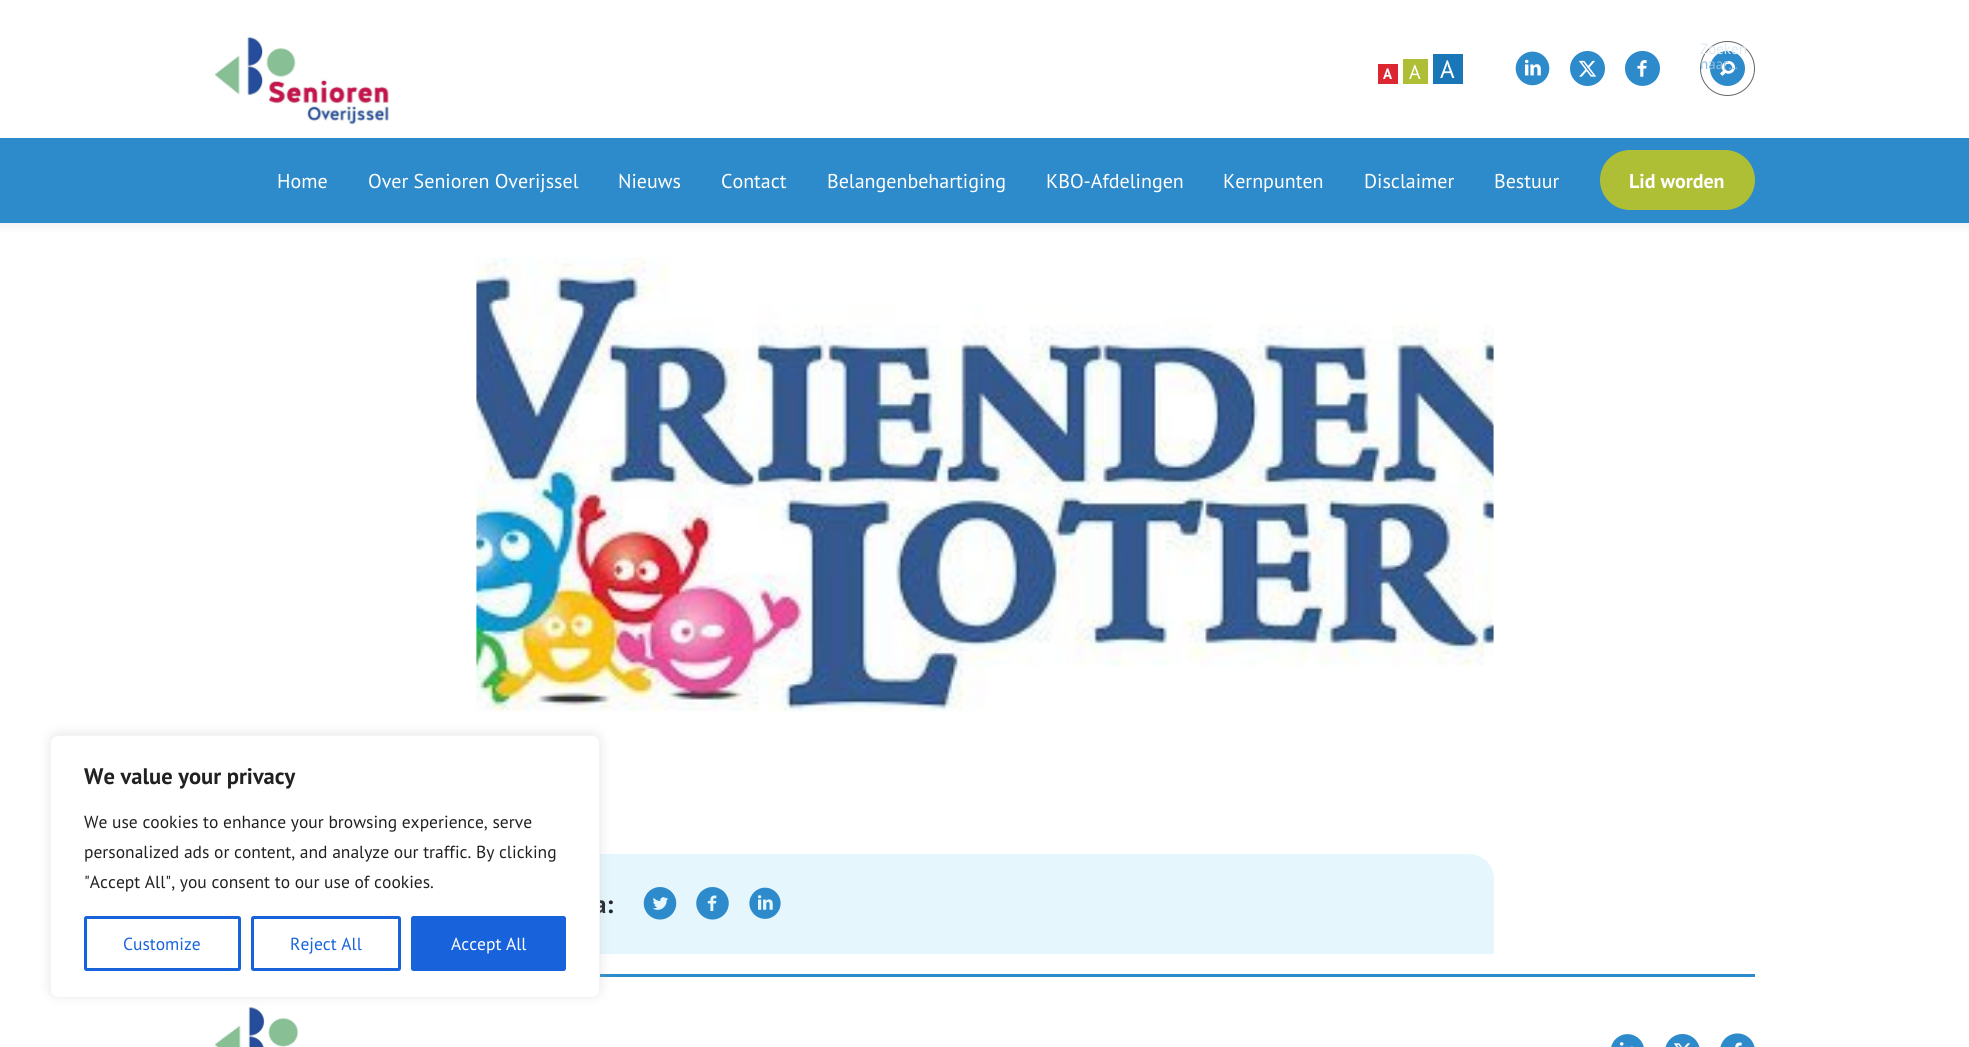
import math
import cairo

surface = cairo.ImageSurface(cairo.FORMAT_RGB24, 1969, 1047)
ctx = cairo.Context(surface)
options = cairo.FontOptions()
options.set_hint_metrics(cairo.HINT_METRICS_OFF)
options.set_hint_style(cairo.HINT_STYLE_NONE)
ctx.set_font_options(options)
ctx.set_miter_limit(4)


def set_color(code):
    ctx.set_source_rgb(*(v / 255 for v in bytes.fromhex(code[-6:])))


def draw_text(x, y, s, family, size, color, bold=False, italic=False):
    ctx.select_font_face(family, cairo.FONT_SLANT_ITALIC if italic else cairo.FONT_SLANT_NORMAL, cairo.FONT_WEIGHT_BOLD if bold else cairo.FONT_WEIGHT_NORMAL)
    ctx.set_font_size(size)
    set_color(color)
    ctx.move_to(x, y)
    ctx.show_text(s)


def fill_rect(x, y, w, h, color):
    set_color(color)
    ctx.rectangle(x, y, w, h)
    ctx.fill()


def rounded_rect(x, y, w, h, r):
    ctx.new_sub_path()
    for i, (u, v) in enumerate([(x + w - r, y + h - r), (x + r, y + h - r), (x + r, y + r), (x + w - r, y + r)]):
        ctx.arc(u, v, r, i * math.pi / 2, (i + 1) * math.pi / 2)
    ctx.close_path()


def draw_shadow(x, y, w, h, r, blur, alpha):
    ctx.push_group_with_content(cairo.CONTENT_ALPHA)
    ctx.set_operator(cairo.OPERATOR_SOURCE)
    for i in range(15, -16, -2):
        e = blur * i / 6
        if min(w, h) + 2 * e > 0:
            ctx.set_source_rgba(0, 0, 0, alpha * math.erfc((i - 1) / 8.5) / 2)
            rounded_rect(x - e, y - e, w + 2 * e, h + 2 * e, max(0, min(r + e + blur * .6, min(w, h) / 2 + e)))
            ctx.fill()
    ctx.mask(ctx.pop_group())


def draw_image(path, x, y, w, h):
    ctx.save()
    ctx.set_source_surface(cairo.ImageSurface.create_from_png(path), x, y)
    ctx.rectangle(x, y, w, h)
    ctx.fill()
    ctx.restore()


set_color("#ffffff")
ctx.paint()
set_color("#000000")
draw_shadow(0, 3, 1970, 222, 0, 6, 0.08)
fill_rect(0, 0, 1969, 138, "#ffffff")
draw_image("assets/img1.png", 215, 36, 174, 89)
fill_rect(1378, 64, 20, 20, "#dd2730")
draw_text(1383, 79, "A", "PT Sans", 15, "#ffffff", bold=True)
fill_rect(1403, 59, 25, 25, "#aebf35")
draw_text(1409, 79, "A", "PT Sans", 20, "#ffffff")
fill_rect(1433, 54, 30, 30, "#1a77b7")
draw_text(1440, 78, "A", "PT Sans", 25, "#ffffff")
draw_image("assets/img2.png", 1515, 51, 35, 35)
set_color("#2e8bcb")
ctx.arc(1587.5, 68.5, 17.5, 0, 2 * math.pi)
ctx.fill()
draw_image("assets/img3.png", 1579, 60, 17, 17)
draw_image("assets/img4.png", 1625, 50, 35, 36)
ctx.arc(1727.5, 68.5, 27, 0, 2 * math.pi)
set_color("#666666")
ctx.set_line_width(1)
ctx.stroke()
set_color("#2e8bcb")
ctx.arc(1727.5, 68.5, 17.5, 0, 2 * math.pi)
ctx.fill()
draw_text(1700, 54, "Zoeken", "PT Sans", 15, "#dfeaf2")
draw_image("assets/img5.png", 1720, 60, 15, 16)
draw_text(1700, 69, "naar...", "PT Sans", 15, "#8bbee0")
fill_rect(0, 138, 1969, 85, "#2e8bcb")
draw_text(277, 188, "Home", "PT Sans", 20, "#ffffff")
draw_text(368, 188, "Over Senioren Overijssel", "PT Sans", 20, "#ffffff")
draw_text(618, 188, "Nieuws", "PT Sans", 20, "#ffffff")
draw_text(721, 188, "Contact", "PT Sans", 20, "#ffffff")
draw_text(827, 188, "Belangenbehartiging", "PT Sans", 20, "#ffffff")
draw_text(1046, 188, "KBO-Afdelingen", "PT Sans", 20, "#ffffff")
draw_text(1223, 188, "Kernpunten", "PT Sans", 20, "#ffffff")
draw_text(1364, 188, "Disclaimer", "PT Sans", 20, "#ffffff")
draw_text(1494, 188, "Bestuur", "PT Sans", 20, "#ffffff")
set_color("#aebf35")
rounded_rect(1600, 150, 155, 60, 30)
ctx.fill()
draw_text(1629, 188, "Lid worden", "PT Sans", 20, "#ffffff", bold=True)
draw_image("assets/img6.png", 476, 257, 1018, 456)
set_color("#e5f7fd")
ctx.new_path()
ctx.move_to(476, 854)
ctx.line_to(1469, 854)
ctx.curve_to(1483, 854, 1494, 865, 1494, 879)
ctx.line_to(1494, 954)
ctx.line_to(501, 954)
ctx.curve_to(487, 954, 476, 943, 476, 929)
ctx.close_path()
ctx.fill()
draw_text(594, 913, "a:", "PT Sans", 25, "#212529", bold=True)
draw_image("assets/img7.png", 643, 887, 34, 33)
draw_image("assets/img8.png", 696, 887, 33, 33)
draw_image("assets/img9.png", 749, 887, 32, 32)
fill_rect(600, 974, 1155, 3, "#2e8bcb")
draw_image("assets/img10.png", 215, 1006, 84, 41)
draw_image("assets/img11.png", 1611, 1034, 33, 13)
rounded_rect(1665, 1034, 35, 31, 17.5)
ctx.fill()
draw_image("assets/img12.png", 1674, 1043, 17, 4)
draw_image("assets/img13.png", 1720, 1033, 35, 14)
set_color("#acabab")
draw_shadow(50, 734, 550, 262, 8, 6, 0.3)
set_color("#ffffff")
rounded_rect(50.5, 735.5, 549, 262, 7.5)
ctx.fill_preserve()
set_color("#f4f4f4")
ctx.stroke()
draw_text(84, 784, "We value your privacy", "PT Sans", 22.5, "#212121", bold=True)
draw_text(84, 828, "We use cookies to enhance your browsing experience, serve", "PT Sans", 17.5, "#212121")
draw_text(84, 858, "personalized ads or content, and analyze our traffic. By clicking", "PT Sans", 17.5, "#212121")
draw_text(84, 888, "\"Accept All\", you consent to our use of cookies.", "PT Sans", 17.5, "#212121")
rounded_rect(85.5, 917.5, 154, 52, 1)
set_color("#1863dc")
ctx.set_line_width(3)
ctx.stroke()
draw_text(123, 950, "Customize", "PT Sans", 17.5, "#1863dc")
rounded_rect(252.5, 917.5, 147, 52, 1)
ctx.stroke()
draw_text(290, 950, "Reject All", "PT Sans", 17.5, "#1863dc")
rounded_rect(412.5, 917.5, 152, 52, 1)
ctx.fill_preserve()
ctx.stroke()
draw_text(451, 950, "Accept All", "PT Sans", 17.5, "#ffffff")
surface.write_to_png("output.png")
